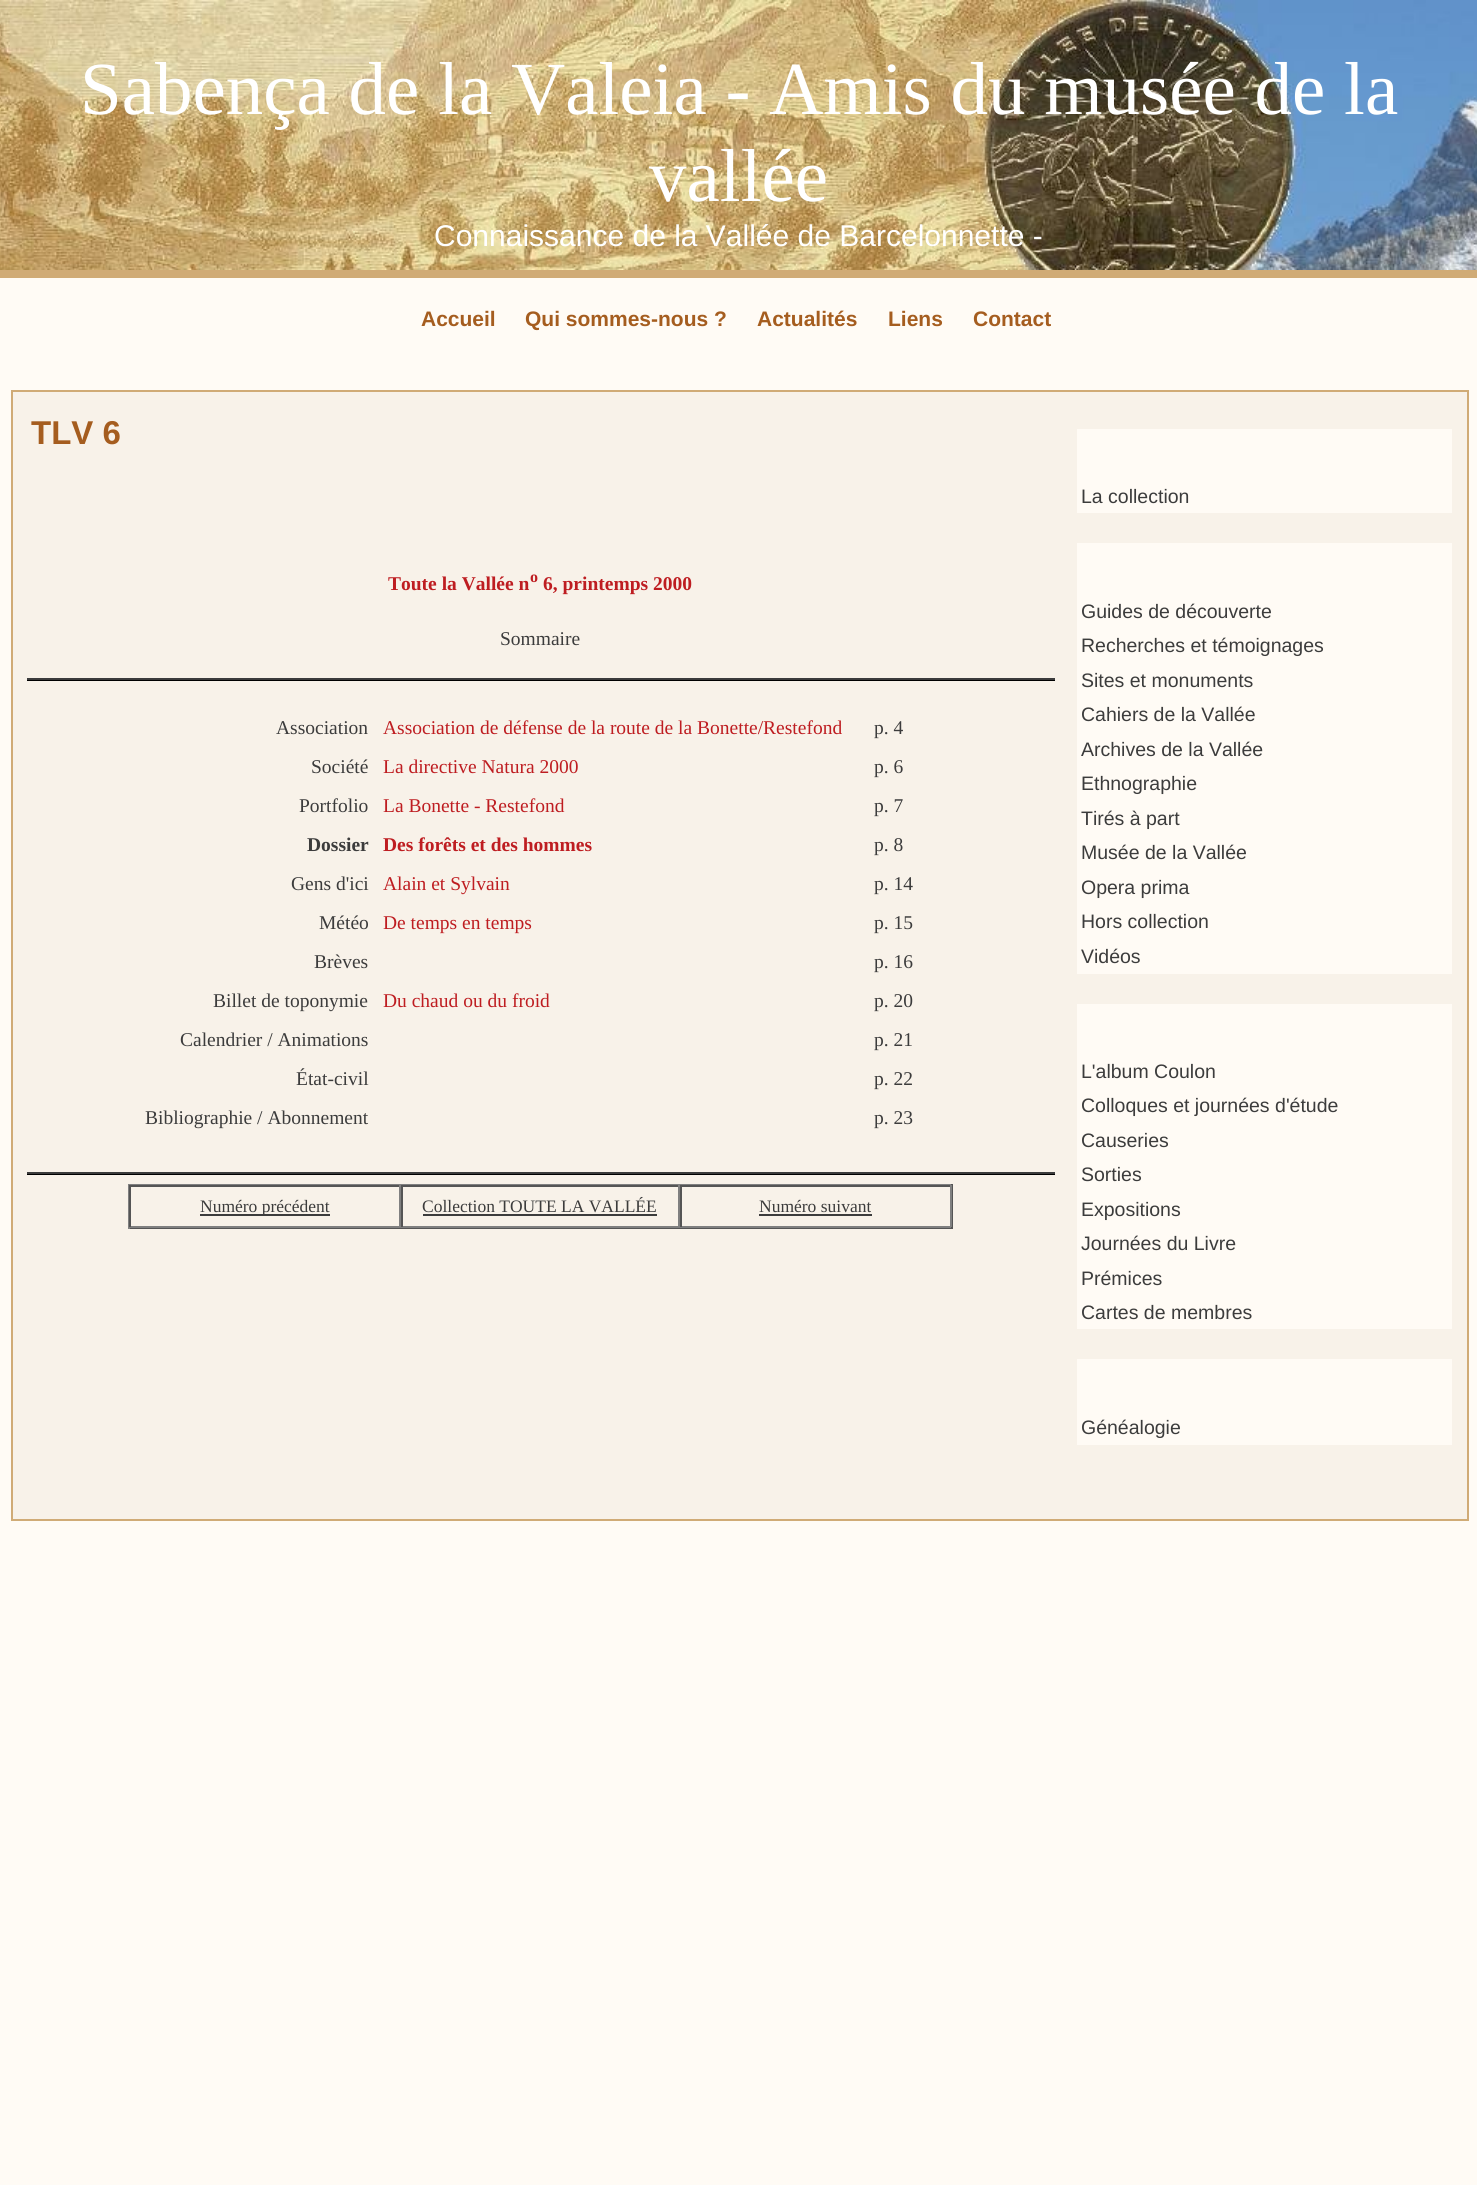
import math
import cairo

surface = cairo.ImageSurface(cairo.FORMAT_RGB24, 1477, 2185)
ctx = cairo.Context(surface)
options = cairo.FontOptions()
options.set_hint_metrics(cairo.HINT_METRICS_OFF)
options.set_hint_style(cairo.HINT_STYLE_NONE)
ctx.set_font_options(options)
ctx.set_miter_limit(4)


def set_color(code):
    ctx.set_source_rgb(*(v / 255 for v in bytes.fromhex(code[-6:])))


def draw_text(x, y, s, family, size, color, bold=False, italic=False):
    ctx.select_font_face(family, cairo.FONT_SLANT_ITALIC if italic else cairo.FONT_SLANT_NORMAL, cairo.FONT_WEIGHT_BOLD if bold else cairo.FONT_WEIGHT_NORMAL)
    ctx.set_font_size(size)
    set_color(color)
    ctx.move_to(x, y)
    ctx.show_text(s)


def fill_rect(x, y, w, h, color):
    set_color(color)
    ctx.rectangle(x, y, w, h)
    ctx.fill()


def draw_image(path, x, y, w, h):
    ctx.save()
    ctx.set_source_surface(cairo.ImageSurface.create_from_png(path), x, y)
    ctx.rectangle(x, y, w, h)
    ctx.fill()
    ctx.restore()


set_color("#fffbf5")
ctx.paint()
draw_image("assets/img1.png", 0, 0, 1477, 270)
fill_rect(0, 270, 1477, 8, "#d0ab76")
draw_text(80, 114, "Sabença de la Valeia - Amis du musée de la", "Liberation Serif", 75, "#ffffff")
draw_text(649, 201, "vallée", "Liberation Serif", 75, "#ffffff")
draw_text(434, 246, "Connaissance de la Vallée de Barcelonnette -", "Liberation Sans", 30, "#ffffff")
draw_text(421, 326, "Accueil", "Liberation Sans", 21, "#a55d1f", bold=True)
draw_text(525, 326, "Qui sommes-nous ?", "Liberation Sans", 21, "#a55d1f", bold=True)
draw_text(757, 326, "Actualités", "Liberation Sans", 21, "#a55d1f", bold=True)
draw_text(888, 326, "Liens", "Liberation Sans", 21, "#a55d1f", bold=True)
draw_text(973, 326, "Contact", "Liberation Sans", 21, "#a55d1f", bold=True)
set_color("#f8f2e9")
ctx.rectangle(12, 391, 1456, 1129)
ctx.fill_preserve()
set_color("#d0ab76")
ctx.stroke()
draw_text(31, 444, "TLV 6", "Liberation Sans", 33, "#a55d1f", bold=True)
draw_text(388, 590, "Toute la Vallée n", "Liberation Serif", 19.5, "#be1d21", bold=True)
draw_text(530, 582, "o", "Liberation Serif", 16, "#be1d21", bold=True)
draw_text(543, 590, "6, printemps 2000", "Liberation Serif", 19.5, "#be1d21", bold=True)
draw_text(500, 645, "Sommaire", "Liberation Serif", 19.5, "#3c3c3c")
fill_rect(27, 680, 1028, 1, "#000000")
fill_rect(27, 678, 1028, 2, "#3c3c3c")
draw_text(276, 734, "Association", "Liberation Serif", 19.5, "#3c3c3c")
draw_text(383, 734, "Association de défense de la route de la Bonette/Restefond", "Liberation Serif", 19.5, "#be1d21")
draw_text(874, 734, "p. 4", "Liberation Serif", 19.5, "#3c3c3c")
draw_text(311, 773, "Société", "Liberation Serif", 19.5, "#3c3c3c")
draw_text(383, 773, "La directive Natura 2000", "Liberation Serif", 19.5, "#be1d21")
draw_text(874, 773, "p. 6", "Liberation Serif", 19.5, "#3c3c3c")
draw_text(299, 812, "Portfolio", "Liberation Serif", 19.5, "#3c3c3c")
draw_text(383, 812, "La Bonette - Restefond", "Liberation Serif", 19.5, "#be1d21")
draw_text(874, 812, "p. 7", "Liberation Serif", 19.5, "#3c3c3c")
draw_text(307, 851, "Dossier", "Liberation Serif", 19.5, "#3c3c3c", bold=True)
draw_text(383, 851, "Des forêts et des hommes", "Liberation Serif", 19.5, "#be1d21", bold=True)
draw_text(874, 851, "p. 8", "Liberation Serif", 19.5, "#3c3c3c")
draw_text(291, 890, "Gens d'ici", "Liberation Serif", 19.5, "#3c3c3c")
draw_text(383, 890, "Alain et Sylvain", "Liberation Serif", 19.5, "#be1d21")
draw_text(874, 890, "p. 14", "Liberation Serif", 19.5, "#3c3c3c")
draw_text(319, 929, "Météo", "Liberation Serif", 19.5, "#3c3c3c")
draw_text(383, 929, "De temps en temps", "Liberation Serif", 19.5, "#be1d21")
draw_text(874, 929, "p. 15", "Liberation Serif", 19.5, "#3c3c3c")
draw_text(314, 968, "Brèves", "Liberation Serif", 19.5, "#3c3c3c")
draw_text(874, 968, "p. 16", "Liberation Serif", 19.5, "#3c3c3c")
draw_text(213, 1007, "Billet de toponymie", "Liberation Serif", 19.5, "#3c3c3c")
draw_text(383, 1007, "Du chaud ou du froid", "Liberation Serif", 19.5, "#be1d21")
draw_text(874, 1007, "p. 20", "Liberation Serif", 19.5, "#3c3c3c")
draw_text(180, 1046, "Calendrier / Animations", "Liberation Serif", 19.5, "#3c3c3c")
draw_text(874, 1046, "p. 21", "Liberation Serif", 19.5, "#3c3c3c")
draw_text(296, 1085, "État-civil", "Liberation Serif", 19.5, "#3c3c3c")
draw_text(874, 1085, "p. 22", "Liberation Serif", 19.5, "#3c3c3c")
draw_text(145, 1124, "Bibliographie / Abonnement", "Liberation Serif", 19.5, "#3c3c3c")
draw_text(874, 1124, "p. 23", "Liberation Serif", 19.5, "#3c3c3c")
fill_rect(27, 1174, 1028, 1, "#000000")
fill_rect(27, 1172, 1028, 2, "#3c3c3c")
fill_rect(128, 1184, 825, 1, "#808080")
fill_rect(951, 1184, 2, 45, "#555555")
fill_rect(128, 1227, 825, 2, "#555555")
fill_rect(128, 1184, 2, 45, "#808080")
fill_rect(129, 1185, 822, 2, "#555555")
fill_rect(399, 1185, 2, 42, "#808080")
fill_rect(129, 1226, 272, 2, "#808080")
fill_rect(129, 1185, 2, 42, "#555555")
fill_rect(200, 1214, 130, 2, "#3c3c3c")
draw_text(200, 1212, "Numéro précédent", "Liberation Serif", 17.5, "#3c3c3c")
fill_rect(678, 1185, 2, 42, "#808080")
fill_rect(401, 1226, 279, 2, "#808080")
fill_rect(401, 1185, 2, 42, "#555555")
draw_text(422, 1212, "Collection TOUTE LA VALLÉE", "Liberation Serif", 17.5, "#3c3c3c")
fill_rect(423, 1214, 234, 2, "#3c3c3c")
fill_rect(950, 1185, 2, 42, "#808080")
fill_rect(680, 1226, 271, 2, "#808080")
fill_rect(680, 1185, 2, 42, "#555555")
draw_text(759, 1212, "Numéro suivant", "Liberation Serif", 17.5, "#3c3c3c")
fill_rect(759, 1214, 113, 2, "#3c3c3c")
fill_rect(1077, 429, 375, 84, "#fffbf5")
draw_text(1081, 503, "La collection", "Liberation Sans", 19.5, "#3c3c3c")
fill_rect(1077, 543, 375, 431, "#fffbf5")
draw_text(1081, 618, "Guides de découverte", "Liberation Sans", 19.5, "#3c3c3c")
draw_text(1081, 652, "Recherches et témoignages", "Liberation Sans", 19.5, "#3c3c3c")
draw_text(1081, 687, "Sites et monuments", "Liberation Sans", 19.5, "#3c3c3c")
draw_text(1081, 721, "Cahiers de la Vallée", "Liberation Sans", 19.5, "#3c3c3c")
draw_text(1081, 756, "Archives de la Vallée", "Liberation Sans", 19.5, "#3c3c3c")
draw_text(1081, 790, "Ethnographie", "Liberation Sans", 19.5, "#3c3c3c")
draw_text(1081, 825, "Tirés à part", "Liberation Sans", 19.5, "#3c3c3c")
draw_text(1081, 859, "Musée de la Vallée", "Liberation Sans", 19.5, "#3c3c3c")
draw_text(1081, 894, "Opera prima", "Liberation Sans", 19.5, "#3c3c3c")
draw_text(1081, 928, "Hors collection", "Liberation Sans", 19.5, "#3c3c3c")
draw_text(1081, 963, "Vidéos", "Liberation Sans", 19.5, "#3c3c3c")
fill_rect(1077, 1004, 375, 325, "#fffbf5")
draw_text(1081, 1078, "L'album Coulon", "Liberation Sans", 19.5, "#3c3c3c")
draw_text(1081, 1112, "Colloques et journées d'étude", "Liberation Sans", 19.5, "#3c3c3c")
draw_text(1081, 1147, "Causeries", "Liberation Sans", 19.5, "#3c3c3c")
draw_text(1081, 1181, "Sorties", "Liberation Sans", 19.5, "#3c3c3c")
draw_text(1081, 1216, "Expositions", "Liberation Sans", 19.5, "#3c3c3c")
draw_text(1081, 1250, "Journées du Livre", "Liberation Sans", 19.5, "#3c3c3c")
draw_text(1081, 1285, "Prémices", "Liberation Sans", 19.5, "#3c3c3c")
draw_text(1081, 1319, "Cartes de membres", "Liberation Sans", 19.5, "#3c3c3c")
fill_rect(1077, 1359, 375, 86, "#fffbf5")
draw_text(1081, 1434, "Généalogie", "Liberation Sans", 19.5, "#3c3c3c")
surface.write_to_png("output.png")
